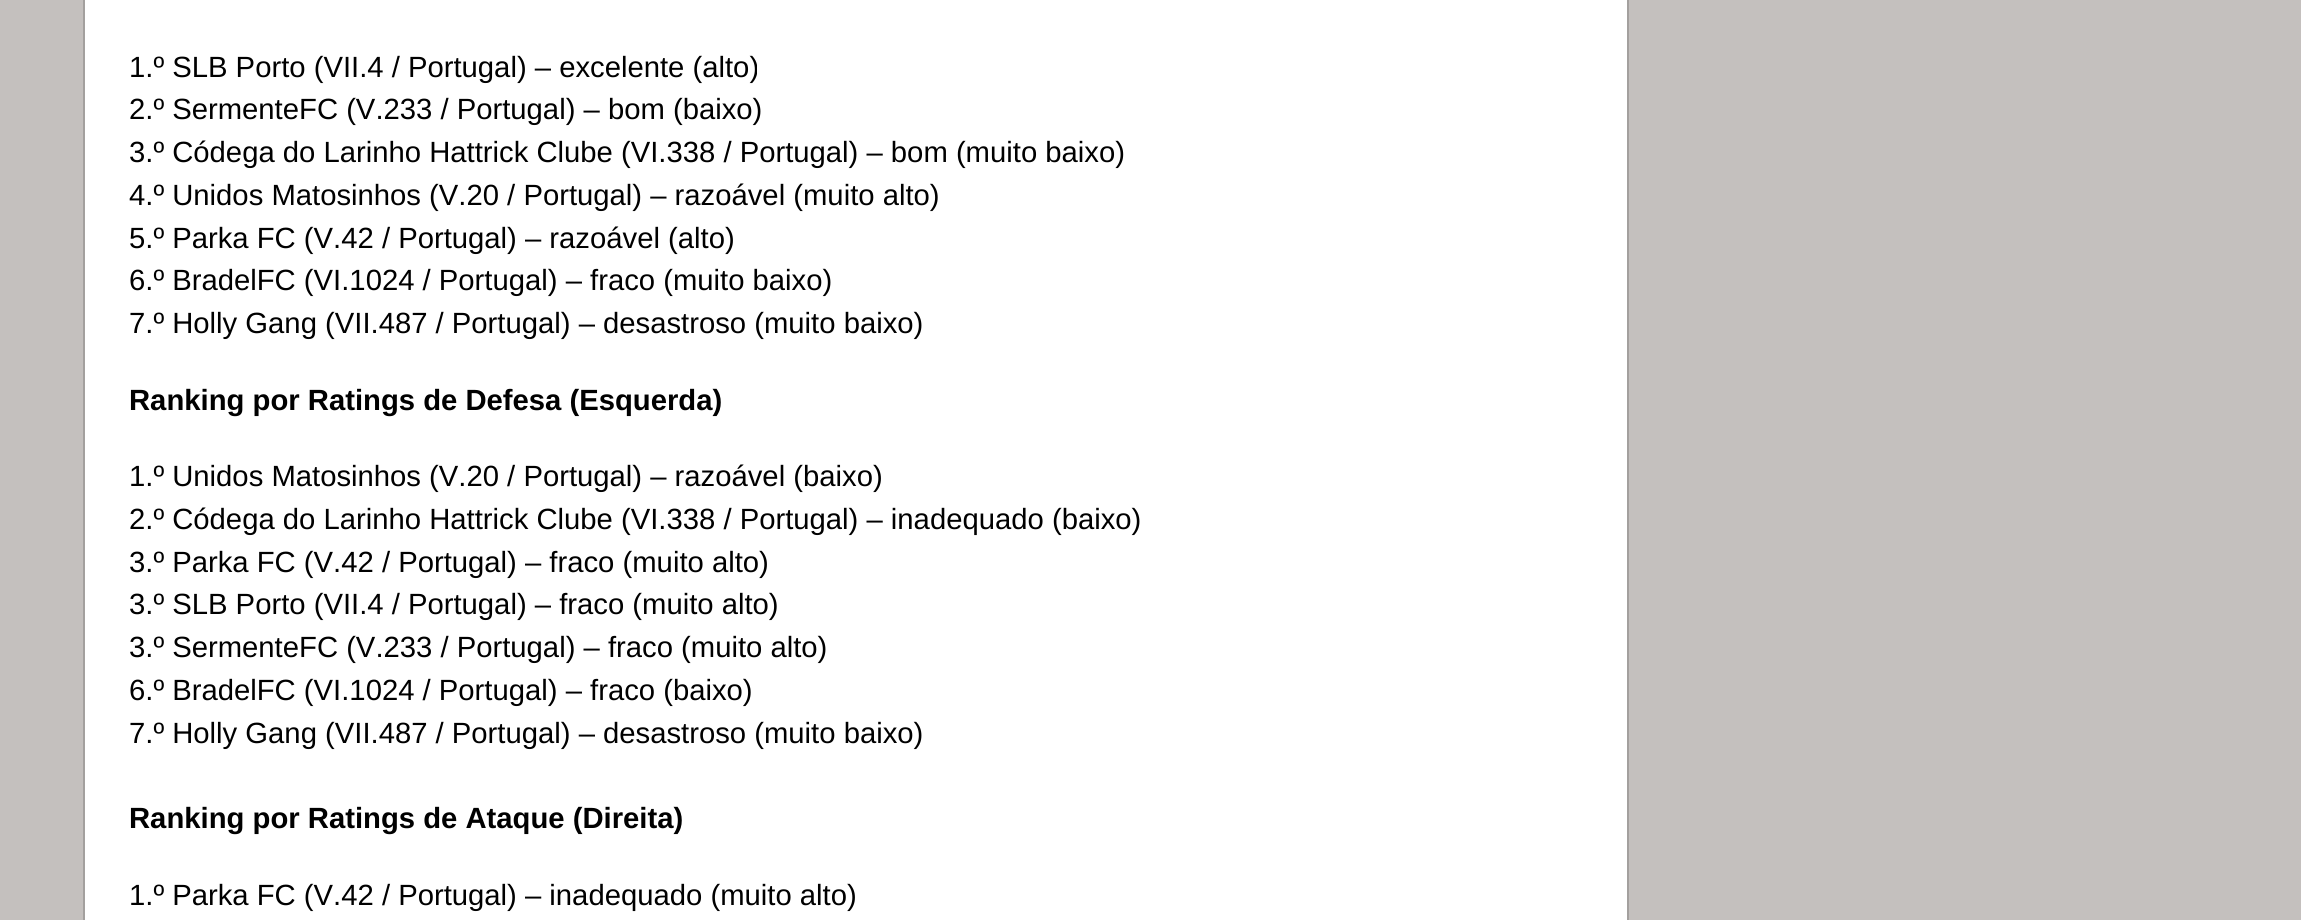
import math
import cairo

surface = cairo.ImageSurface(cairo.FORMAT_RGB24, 2301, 920)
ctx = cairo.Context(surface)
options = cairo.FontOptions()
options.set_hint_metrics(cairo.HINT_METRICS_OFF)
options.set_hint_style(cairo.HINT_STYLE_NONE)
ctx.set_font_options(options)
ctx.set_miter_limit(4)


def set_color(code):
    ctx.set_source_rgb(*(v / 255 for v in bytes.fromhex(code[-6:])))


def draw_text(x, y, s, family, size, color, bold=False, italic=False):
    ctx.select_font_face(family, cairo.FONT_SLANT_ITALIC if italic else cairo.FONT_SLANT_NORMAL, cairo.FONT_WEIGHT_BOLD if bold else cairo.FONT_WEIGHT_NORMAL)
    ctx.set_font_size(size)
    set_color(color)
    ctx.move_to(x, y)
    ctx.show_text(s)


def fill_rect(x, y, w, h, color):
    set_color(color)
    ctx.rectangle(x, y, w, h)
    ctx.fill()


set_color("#c4c0be")
ctx.paint()
fill_rect(85, 0, 1542, 920, "#ffffff")
fill_rect(1627, 0, 2, 920, "#a3a09e")
fill_rect(83, 0, 2, 920, "#a3a09e")
draw_text(129, 77, "1.º SLB Porto (VII.4 / Portugal) – excelente (alto)", "Liberation Sans", 29.25, "#000000")
draw_text(129, 119, "2.º SermenteFC (V.233 / Portugal) – bom (baixo)", "Liberation Sans", 29.25, "#000000")
draw_text(129, 162, "3.º Códega do Larinho Hattrick Clube (VI.338 / Portugal) – bom (muito baixo)", "Liberation Sans", 29.25, "#000000")
draw_text(129, 205, "4.º Unidos Matosinhos (V.20 / Portugal) – razoável (muito alto)", "Liberation Sans", 29.25, "#000000")
draw_text(129, 248, "5.º Parka FC (V.42 / Portugal) – razoável (alto)", "Liberation Sans", 29.25, "#000000")
draw_text(129, 290, "6.º BradelFC (VI.1024 / Portugal) – fraco (muito baixo)", "Liberation Sans", 29.25, "#000000")
draw_text(129, 333, "7.º Holly Gang (VII.487 / Portugal) – desastroso (muito baixo)", "Liberation Sans", 29.25, "#000000")
draw_text(129, 410, "Ranking por Ratings de Defesa (Esquerda)", "Liberation Sans", 29.25, "#000000", bold=True)
draw_text(129, 486, "1.º Unidos Matosinhos (V.20 / Portugal) – razoável (baixo)", "Liberation Sans", 29.25, "#000000")
draw_text(129, 529, "2.º Códega do Larinho Hattrick Clube (VI.338 / Portugal) – inadequado (baixo)", "Liberation Sans", 29.25, "#000000")
draw_text(129, 572, "3.º Parka FC (V.42 / Portugal) – fraco (muito alto)", "Liberation Sans", 29.25, "#000000")
draw_text(129, 614, "3.º SLB Porto (VII.4 / Portugal) – fraco (muito alto)", "Liberation Sans", 29.25, "#000000")
draw_text(129, 657, "3.º SermenteFC (V.233 / Portugal) – fraco (muito alto)", "Liberation Sans", 29.25, "#000000")
draw_text(129, 700, "6.º BradelFC (VI.1024 / Portugal) – fraco (baixo)", "Liberation Sans", 29.25, "#000000")
draw_text(129, 743, "7.º Holly Gang (VII.487 / Portugal) – desastroso (muito baixo)", "Liberation Sans", 29.25, "#000000")
draw_text(129, 828, "Ranking por Ratings de Ataque (Direita)", "Liberation Sans", 29.25, "#000000", bold=True)
draw_text(129, 905, "1.º Parka FC (V.42 / Portugal) – inadequado (muito alto)", "Liberation Sans", 29.25, "#000000")
surface.write_to_png("output.png")
